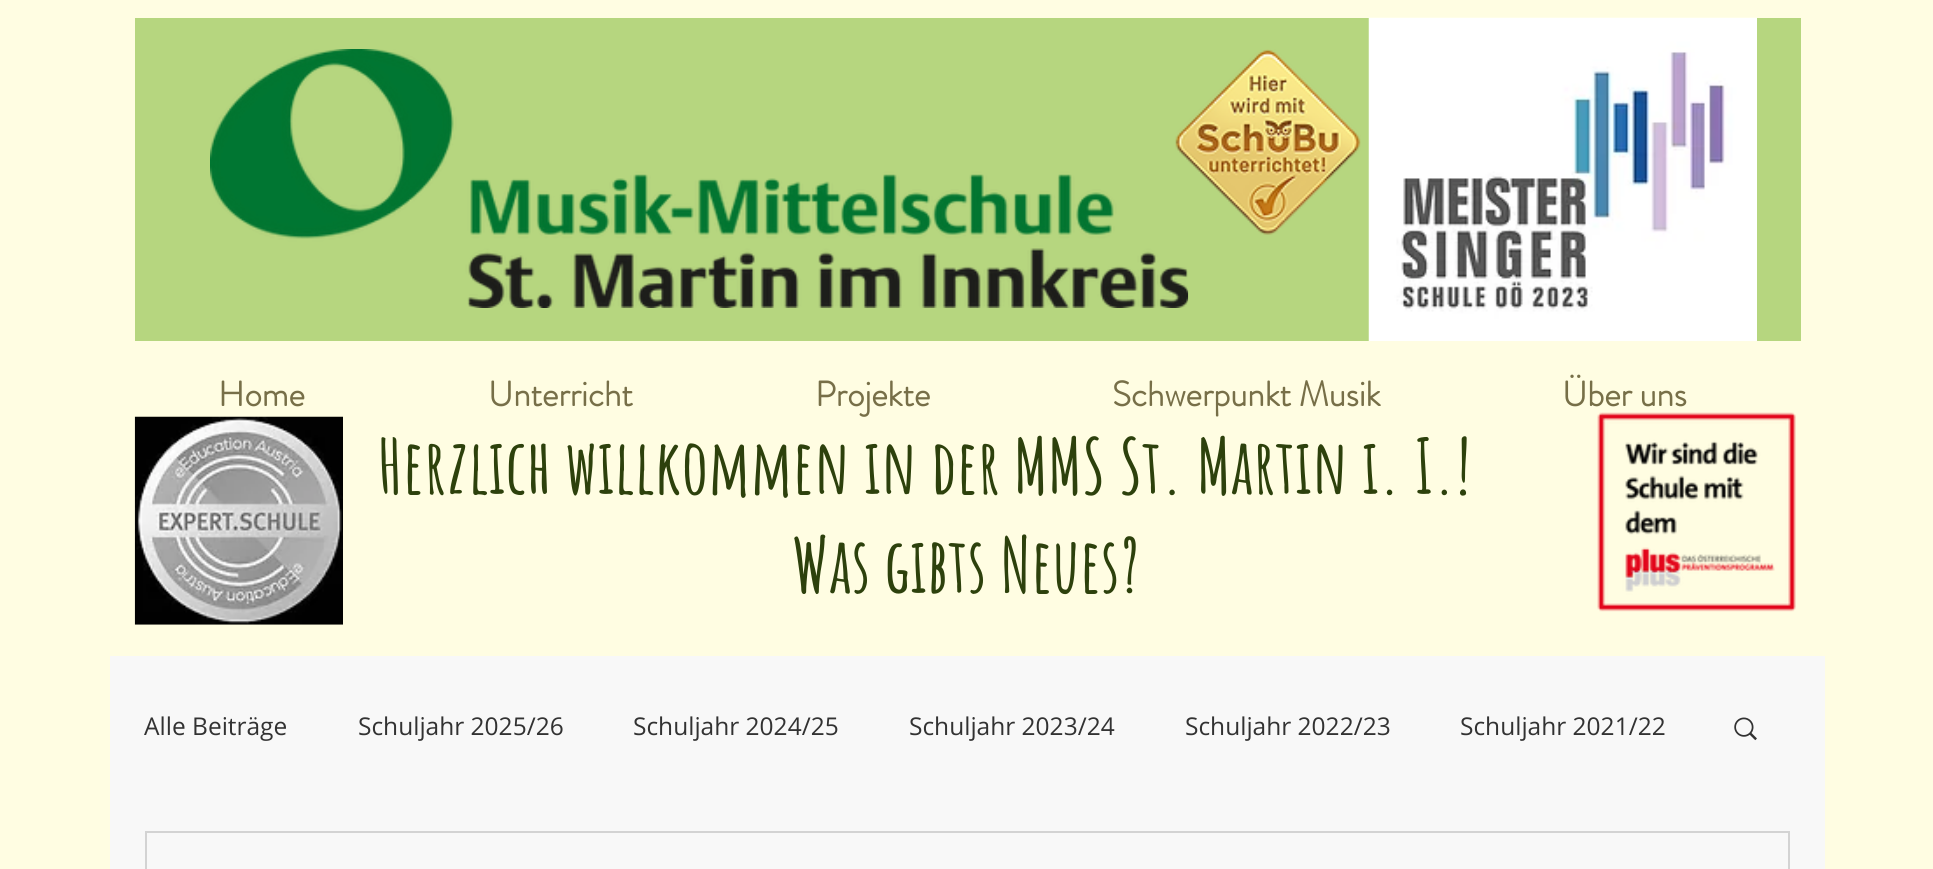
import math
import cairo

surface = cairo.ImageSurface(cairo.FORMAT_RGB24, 1933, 869)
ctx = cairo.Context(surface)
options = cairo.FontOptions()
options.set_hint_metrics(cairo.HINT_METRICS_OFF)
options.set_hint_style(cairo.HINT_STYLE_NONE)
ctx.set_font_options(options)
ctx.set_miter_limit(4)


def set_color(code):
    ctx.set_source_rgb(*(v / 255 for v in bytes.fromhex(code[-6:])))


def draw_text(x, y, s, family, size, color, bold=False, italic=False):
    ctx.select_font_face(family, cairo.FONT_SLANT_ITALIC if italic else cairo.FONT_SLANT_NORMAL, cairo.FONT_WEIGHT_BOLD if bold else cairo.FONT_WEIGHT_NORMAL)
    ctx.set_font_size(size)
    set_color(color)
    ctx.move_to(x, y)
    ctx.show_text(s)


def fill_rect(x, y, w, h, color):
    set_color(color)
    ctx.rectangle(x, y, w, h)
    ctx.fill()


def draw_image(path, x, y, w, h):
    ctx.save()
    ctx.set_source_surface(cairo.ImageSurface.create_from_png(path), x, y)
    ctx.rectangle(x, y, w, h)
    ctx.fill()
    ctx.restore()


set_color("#fffde2")
ctx.paint()
fill_rect(135, 18, 1666, 323, "#b6d67f")
draw_image("assets/img1.png", 210, 49, 979, 259)
draw_image("assets/img2.png", 1175, 49, 186, 186)
draw_image("assets/img3.png", 1368, 17, 389, 324)
draw_text(218, 406, "Home", "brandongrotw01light", 35, "#776f48", bold=True)
draw_text(488, 406, "Unterricht", "brandongrotw01light", 35, "#776f48", bold=True)
draw_text(815, 406, "Projekte", "brandongrotw01light", 35, "#776f48", bold=True)
draw_text(1112, 406, "Schwerpunkt Musik", "brandongrotw01light", 35, "#776f48", bold=True)
draw_text(1562, 406, "Über uns", "brandongrotw01light", 35, "#776f48", bold=True)
draw_image("assets/img4.png", 134, 416, 209, 209)
draw_text(378, 494, "Herzlich willkommen in der MMS St. Martin i. I.!", "Amatic SC", 75.25, "#2d410c", bold=True)
draw_text(792, 593, "Was gibts Neues?", "Amatic SC", 75.25, "#2d410c", bold=True)
draw_image("assets/img5.png", 1597, 412, 199, 200)
fill_rect(110, 656, 1715, 213, "#f8f8f8")
draw_text(144, 735, "Alle Beiträge", "Open Sans", 24.5, "#323232")
draw_text(358, 735, "Schuljahr 2025/26", "Open Sans", 24.5, "#323232")
draw_text(633, 735, "Schuljahr 2024/25", "Open Sans", 24.5, "#323232")
draw_text(909, 735, "Schuljahr 2023/24", "Open Sans", 24.5, "#323232")
draw_text(1185, 735, "Schuljahr 2022/23", "Open Sans", 24.5, "#323232")
draw_text(1460, 735, "Schuljahr 2021/22", "Open Sans", 24.5, "#323232")
draw_image("assets/img6.png", 1734, 717, 23, 24)
ctx.rectangle(146, 832, 1643, 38)
set_color("#d3d3d3")
ctx.stroke()
surface.write_to_png("output.png")
